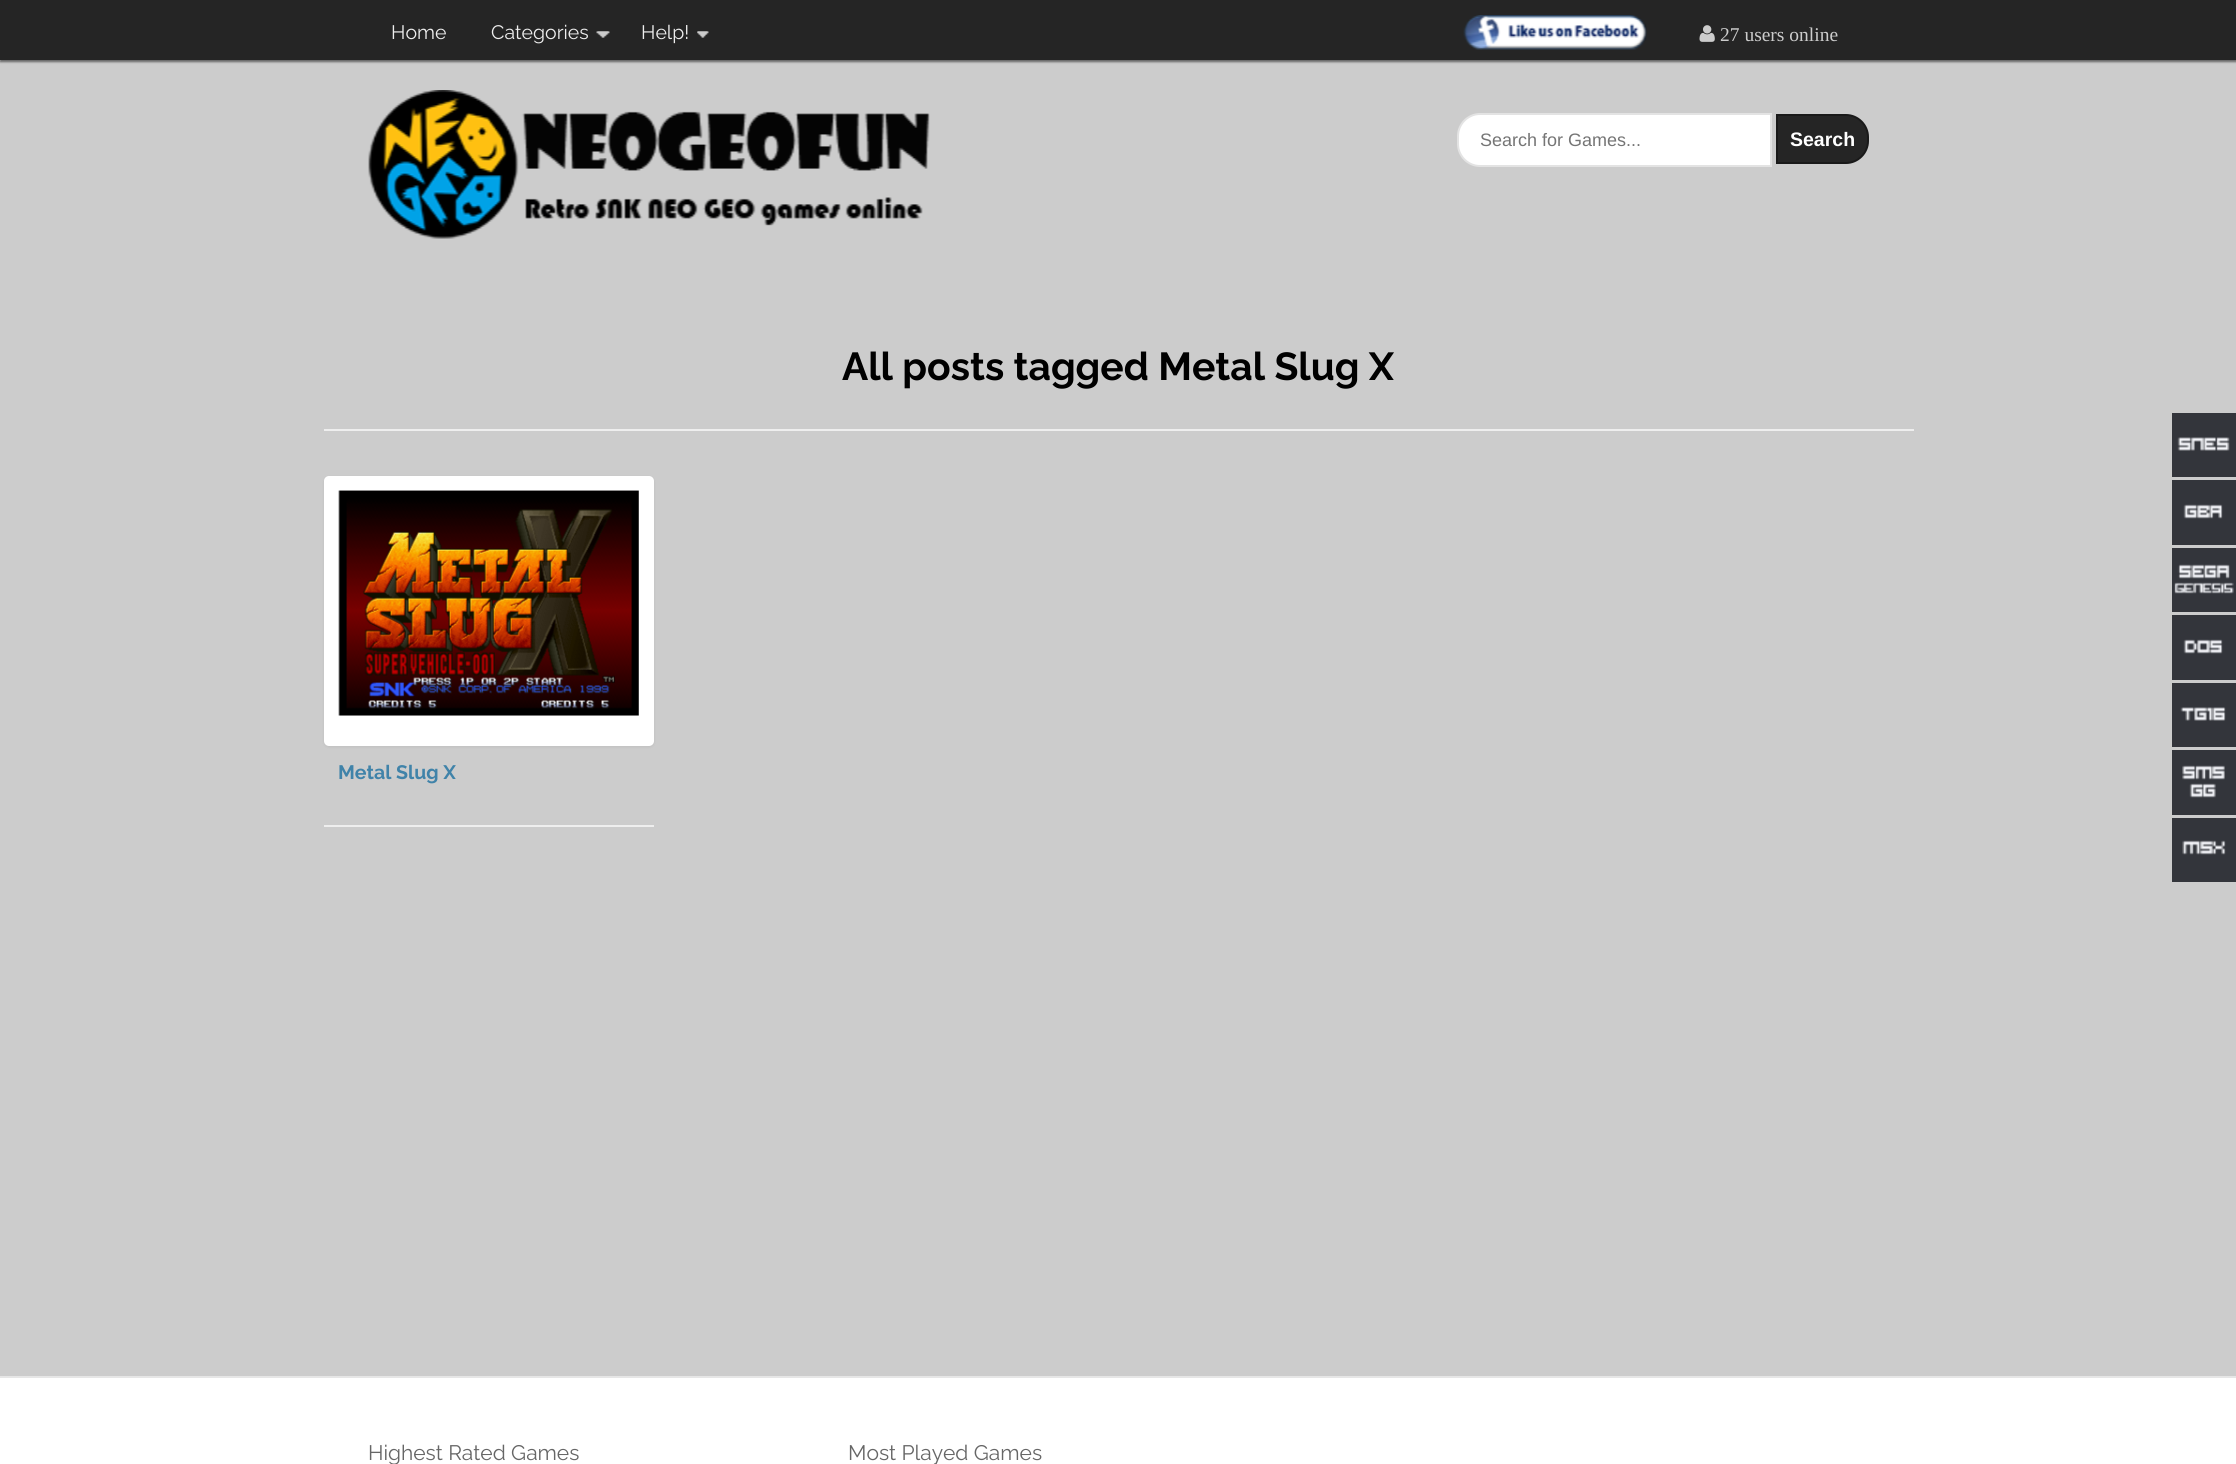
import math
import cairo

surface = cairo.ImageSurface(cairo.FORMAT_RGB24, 2236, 1464)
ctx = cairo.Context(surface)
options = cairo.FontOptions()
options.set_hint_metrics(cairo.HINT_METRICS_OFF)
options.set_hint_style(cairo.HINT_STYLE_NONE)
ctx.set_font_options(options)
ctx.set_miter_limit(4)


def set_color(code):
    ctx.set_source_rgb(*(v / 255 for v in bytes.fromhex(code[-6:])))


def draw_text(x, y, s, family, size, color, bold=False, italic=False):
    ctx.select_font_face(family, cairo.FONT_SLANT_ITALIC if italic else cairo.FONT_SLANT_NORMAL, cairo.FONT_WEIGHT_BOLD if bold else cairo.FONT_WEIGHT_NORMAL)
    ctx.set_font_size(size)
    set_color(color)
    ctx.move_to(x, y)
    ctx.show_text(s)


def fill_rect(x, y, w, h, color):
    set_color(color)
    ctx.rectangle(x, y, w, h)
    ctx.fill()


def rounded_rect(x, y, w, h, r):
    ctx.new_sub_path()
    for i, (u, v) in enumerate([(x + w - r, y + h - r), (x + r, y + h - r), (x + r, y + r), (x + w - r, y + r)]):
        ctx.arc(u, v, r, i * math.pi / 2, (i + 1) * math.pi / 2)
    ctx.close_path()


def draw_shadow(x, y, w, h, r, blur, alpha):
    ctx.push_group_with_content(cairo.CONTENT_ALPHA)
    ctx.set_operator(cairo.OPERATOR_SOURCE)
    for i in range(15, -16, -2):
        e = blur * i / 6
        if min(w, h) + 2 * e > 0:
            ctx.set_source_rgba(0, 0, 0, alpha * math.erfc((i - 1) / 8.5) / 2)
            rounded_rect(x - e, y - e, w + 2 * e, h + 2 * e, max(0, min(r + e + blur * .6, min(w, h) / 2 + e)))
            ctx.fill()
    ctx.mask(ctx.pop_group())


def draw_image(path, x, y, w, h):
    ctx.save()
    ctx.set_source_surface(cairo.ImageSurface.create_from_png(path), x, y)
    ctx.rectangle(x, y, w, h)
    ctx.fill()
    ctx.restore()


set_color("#cccccc")
ctx.paint()
set_color("#000000")
draw_shadow(0, 2, 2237, 60, 0, 1, 0.5)
fill_rect(0, 0, 2236, 60, "#252525")
draw_text(391, 39, "Home", "Raleway", 19.5, "#eeeeee")
draw_text(491, 39, "Categories", "Raleway", 19.5, "#eeeeee")
draw_image("assets/img1.png", 596, 31, 14, 7)
draw_image("assets/img2.png", 596, 31, 14, 7)
draw_text(641, 39, "Help!", "Raleway", 19.5, "#eeeeee")
draw_image("assets/img3.png", 697, 31, 12, 7)
draw_image("assets/img4.png", 697, 31, 12, 7)
draw_image("assets/img5.png", 1463, 15, 184, 35)
draw_image("assets/img6.png", 1699, 25, 16, 17)
draw_text(1720, 41, "27 users online", "Liberation Serif", 19.5, "#cccccc")
draw_image("assets/img7.png", 368, 90, 562, 149)
set_color("#ffffff")
ctx.new_path()
ctx.move_to(1480, 114)
ctx.line_to(1771, 114)
ctx.line_to(1771, 166)
ctx.line_to(1480, 166)
ctx.curve_to(1468, 166, 1458, 156, 1458, 144)
ctx.line_to(1458, 136)
ctx.curve_to(1458, 124, 1468, 114, 1480, 114)
ctx.close_path()
ctx.fill_preserve()
set_color("#e3e3e3")
ctx.stroke()
draw_text(1480, 146, "Search for Games...", "Liberation Sans", 18, "#757575")
set_color("#252525")
ctx.new_path()
ctx.move_to(1777, 115)
ctx.line_to(1846, 115)
ctx.curve_to(1858, 115, 1868, 125, 1868, 137)
ctx.line_to(1868, 141)
ctx.curve_to(1868, 153, 1858, 163, 1846, 163)
ctx.line_to(1777, 163)
ctx.close_path()
ctx.fill_preserve()
set_color("#191919")
ctx.stroke()
draw_text(1790, 146, "Search", "Liberation Sans", 19.5, "#ffffff", bold=True)
fill_rect(324, 429, 1590, 2, "#eeeeee")
draw_text(842, 380, "All posts tagged Metal Slug X", "Raleway", 39, "#000000", bold=True)
fill_rect(324, 825, 330, 2, "#eeeeee")
set_color("#000000")
draw_shadow(324, 477, 330, 270, 5, 1.5, 0.07)
set_color("#ffffff")
rounded_rect(324, 476, 330, 270, 5)
ctx.fill()
draw_image("assets/img8.png", 338, 490, 301, 226)
draw_text(338, 779, "Metal Slug X", "Raleway", 19.5, "#4083a9", bold=True)
fill_rect(2172, 413, 64, 64, "#33353b")
draw_image("assets/img9.png", 2177, 437, 53, 14)
fill_rect(2172, 480, 64, 65, "#33353b")
draw_image("assets/img10.png", 2183, 504, 40, 15)
fill_rect(2172, 548, 64, 64, "#33353b")
draw_image("assets/img11.png", 2174, 564, 60, 30)
fill_rect(2172, 615, 64, 65, "#33353b")
draw_image("assets/img12.png", 2183, 639, 40, 15)
fill_rect(2172, 683, 64, 64, "#33353b")
draw_image("assets/img13.png", 2180, 707, 46, 14)
fill_rect(2172, 750, 64, 65, "#33353b")
draw_image("assets/img14.png", 2182, 765, 43, 33)
fill_rect(2172, 818, 64, 64, "#33353b")
draw_image("assets/img15.png", 2182, 840, 44, 15)
fill_rect(0, 1378, 2236, 86, "#ffffff")
fill_rect(0, 1376, 2236, 2, "#e6e6e6")
draw_text(368, 1460, "Highest Rated Games", "Raleway", 21, "#666666")
draw_text(848, 1460, "Most Played Games", "Raleway", 21, "#666666")
surface.write_to_png("output.png")
